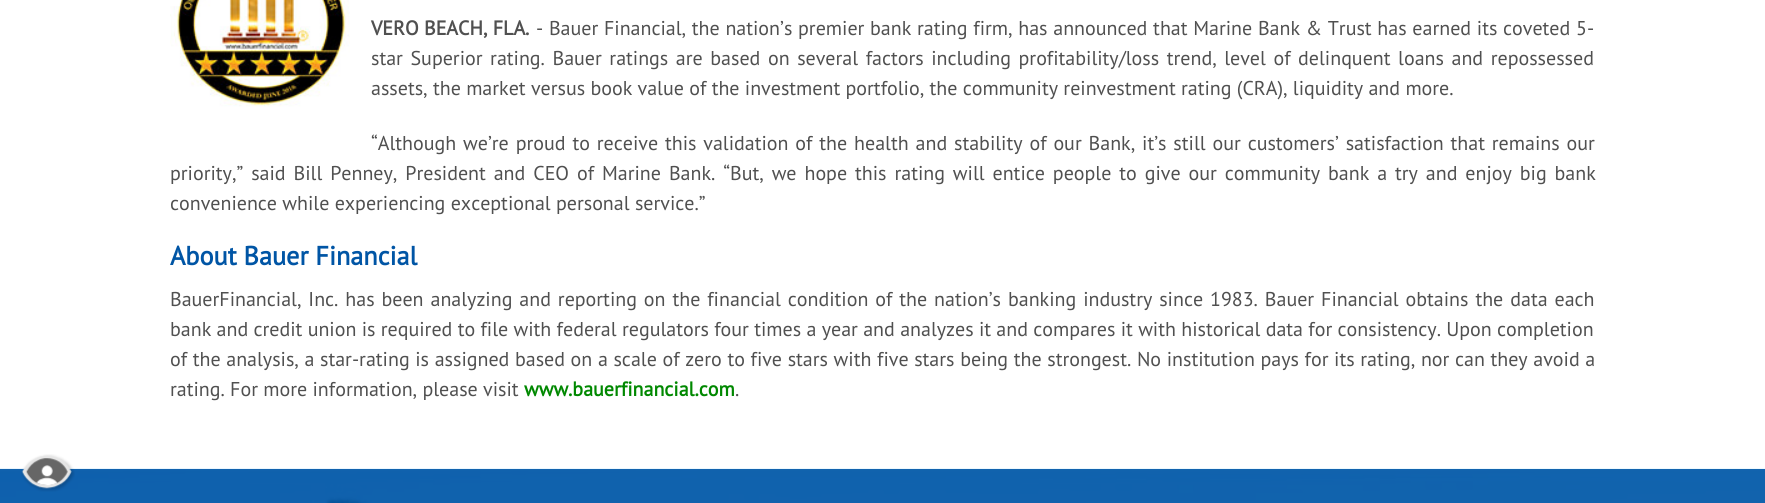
import math
import cairo

surface = cairo.ImageSurface(cairo.FORMAT_RGB24, 1765, 503)
ctx = cairo.Context(surface)
options = cairo.FontOptions()
options.set_hint_metrics(cairo.HINT_METRICS_OFF)
options.set_hint_style(cairo.HINT_STYLE_NONE)
ctx.set_font_options(options)
ctx.set_miter_limit(4)


def set_color(code):
    ctx.set_source_rgb(*(v / 255 for v in bytes.fromhex(code[-6:])))


def draw_text(x, y, s, family, size, color, bold=False, italic=False):
    ctx.select_font_face(family, cairo.FONT_SLANT_ITALIC if italic else cairo.FONT_SLANT_NORMAL, cairo.FONT_WEIGHT_BOLD if bold else cairo.FONT_WEIGHT_NORMAL)
    ctx.set_font_size(size)
    set_color(color)
    ctx.move_to(x, y)
    ctx.show_text(s)


def draw_spaced(x, y, s, letter, word):
    ctx.move_to(x, y)
    for ch in s:
        ctx.show_text(ch)
        ctx.rel_move_to(letter + word * (ch == ' '), 0)


def draw_image(path, x, y, w, h):
    ctx.save()
    ctx.set_source_surface(cairo.ImageSurface.create_from_png(path), x, y)
    ctx.rectangle(x, y, w, h)
    ctx.fill()
    ctx.restore()


set_color("#ffffff")
ctx.paint()
draw_image("assets/img1.png", 170, 0, 180, 107)
draw_text(371, 35, "VERO BEACH, FLA.", "PT Sans", 20, "#505050", bold=True)
ctx.select_font_face("PT Sans")
draw_spaced(536, 35, "- Bauer Financial, the nation’s premier bank rating firm, has announced that Marine Bank & Trust has earned its coveted 5-", 0, 0.4)
draw_spaced(371, 65, "star Superior rating. Bauer ratings are based on several factors including profitability/loss trend, level of delinquent loans and repossessed", 0, 2.25)
draw_text(371, 95, "assets, the market versus book value of the investment portfolio, the community reinvestment rating (CRA), liquidity and more.", "PT Sans", 20, "#505050")
draw_spaced(371, 150, "“Although we’re proud to receive this validation of the health and stability of our Bank, it’s still our customers’ satisfaction that remains our", 0, 1.55)
draw_spaced(170, 180, "priority,” said Bill Penney, President and CEO of Marine Bank. “But, we hope this rating will entice people to give our community bank a try and enjoy big bank", 0, 2.6)
draw_text(170, 210, "convenience while experiencing exceptional personal service.”", "PT Sans", 20, "#505050")
draw_text(170, 265, "About Bauer Financial", "PT Sans", 26.25, "#0055a5", bold=True)
ctx.select_font_face("PT Sans")
ctx.set_font_size(20)
set_color("#505050")
draw_spaced(170, 306, "BauerFinancial, Inc. has been analyzing and reporting on the financial condition of the nation’s banking industry since 1983. Bauer Financial obtains the data each", 0, 1.6)
draw_text(170, 336, "bank and credit union is required to file with federal regulators four times a year and analyzes it and compares it with historical data for consistency. Upon completion", "PT Sans", 20, "#505050")
draw_spaced(170, 366, "of the analysis, a star-rating is assigned based on a scale of zero to five stars with five stars being the strongest. No institution pays for its rating, nor can they avoid a", 0, 0.3)
draw_text(170, 396, "rating. For more information, please visit", "PT Sans", 20, "#505050")
draw_text(524, 396, "www.bauerfinancial.com", "PT Sans", 20, "#008800", bold=True)
draw_text(735, 396, ".", "PT Sans", 20, "#505050")
draw_image("assets/img3.png", 0, 468, 1765, 35)
draw_image("assets/img2.png", 21, 454, 54, 38)
surface.write_to_png("output.png")
